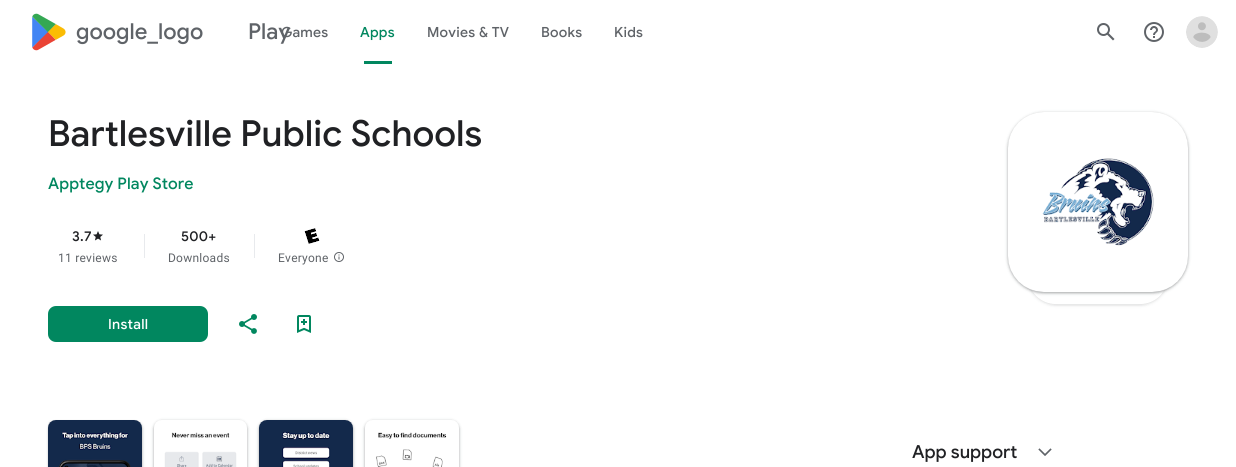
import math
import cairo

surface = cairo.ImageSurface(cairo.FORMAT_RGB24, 1236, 467)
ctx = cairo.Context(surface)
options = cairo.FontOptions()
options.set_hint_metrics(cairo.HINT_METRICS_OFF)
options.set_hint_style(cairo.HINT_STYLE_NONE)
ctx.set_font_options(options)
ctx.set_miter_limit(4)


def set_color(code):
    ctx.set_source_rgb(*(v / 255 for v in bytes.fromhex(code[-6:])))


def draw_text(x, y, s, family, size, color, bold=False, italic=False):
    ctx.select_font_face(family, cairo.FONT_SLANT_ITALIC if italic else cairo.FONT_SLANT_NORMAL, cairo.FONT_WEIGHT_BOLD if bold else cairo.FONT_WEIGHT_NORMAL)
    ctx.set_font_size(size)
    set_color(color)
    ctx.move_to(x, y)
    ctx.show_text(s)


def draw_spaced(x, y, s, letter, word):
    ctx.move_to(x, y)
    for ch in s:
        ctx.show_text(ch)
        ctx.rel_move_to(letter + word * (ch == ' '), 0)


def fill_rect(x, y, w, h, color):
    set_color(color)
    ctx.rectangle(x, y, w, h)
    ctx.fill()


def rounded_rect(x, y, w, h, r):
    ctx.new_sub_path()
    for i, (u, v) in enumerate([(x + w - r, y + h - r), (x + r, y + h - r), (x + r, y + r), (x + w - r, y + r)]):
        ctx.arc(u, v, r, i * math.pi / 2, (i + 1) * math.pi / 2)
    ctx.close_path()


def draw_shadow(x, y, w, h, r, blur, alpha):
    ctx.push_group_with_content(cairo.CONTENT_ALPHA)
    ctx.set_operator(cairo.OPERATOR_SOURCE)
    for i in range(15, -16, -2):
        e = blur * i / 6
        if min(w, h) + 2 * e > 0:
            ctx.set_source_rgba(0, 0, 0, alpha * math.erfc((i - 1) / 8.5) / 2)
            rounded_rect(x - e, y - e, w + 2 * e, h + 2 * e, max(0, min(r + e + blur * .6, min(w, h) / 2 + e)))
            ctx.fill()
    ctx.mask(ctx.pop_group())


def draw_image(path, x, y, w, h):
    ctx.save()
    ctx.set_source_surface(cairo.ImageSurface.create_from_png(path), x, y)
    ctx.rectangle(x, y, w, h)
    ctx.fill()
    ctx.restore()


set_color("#ffffff")
ctx.paint()
draw_image("assets/img1.png", 32, 13, 34, 38)
ctx.select_font_face("Google Sans Medium")
ctx.set_font_size(22)
set_color("#5f6368")
draw_spaced(76, 39, "google_logo", 0, 55)
draw_spaced(248, 39, "Play", 0, 55)
ctx.set_font_size(14)
draw_spaced(281, 37, "Games", 0.25, 0)
set_color("#01875f")
draw_spaced(360, 37, "Apps", 0.25, 0)
fill_rect(364, 61, 28, 3, "#01875f")
set_color("#5f6368")
draw_spaced(427, 37, "Movies & TV", 0.25, 0)
draw_spaced(541, 37, "Books", 0.25, 0)
draw_spaced(614, 37, "Kids", 0.25, 0)
draw_image("assets/img2.png", 1097, 23, 18, 18)
draw_image("assets/img3.png", 1144, 22, 20, 20)
draw_image("assets/img4.png", 1186, 16, 32, 32)
draw_text(48, 146, "Bartlesville Public Schools", "Google Sans Medium", 36, "#202124")
ctx.set_font_size(16)
set_color("#01875f")
draw_spaced(48, 189, "Apptegy Play Store", 0.1, 0)
ctx.set_font_size(14)
set_color("#202124")
draw_spaced(72, 241, "3.7", 0.25, 0)
draw_image("assets/img5.png", 93, 231, 10, 10)
ctx.select_font_face("Roboto")
ctx.set_font_size(12)
set_color("#5f6368")
draw_spaced(58, 262, "11 reviews", 0.25, 0)
fill_rect(144, 234, 1, 24, "#e8eaed")
ctx.select_font_face("Google Sans Medium")
ctx.set_font_size(14)
set_color("#202124")
draw_spaced(181, 241, "500+", 0.25, 0)
ctx.select_font_face("Roboto")
ctx.set_font_size(12)
set_color("#5f6368")
draw_spaced(168, 262, "Downloads", 0.25, 0)
fill_rect(254, 234, 1, 24, "#e8eaed")
draw_image("assets/img6.png", 304, 228, 16, 16)
set_color("#5f6368")
draw_spaced(278, 262, "Everyone", 0.25, 0)
draw_image("assets/img7.png", 334, 252, 10, 10)
ctx.save()
ctx.set_fill_rule(cairo.FILL_RULE_EVEN_ODD)
ctx.new_path()
ctx.move_to(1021, 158)
ctx.line_to(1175, 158)
ctx.line_to(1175, 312)
ctx.line_to(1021, 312)
ctx.close_path()
ctx.move_to(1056, 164)
ctx.line_to(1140, 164)
ctx.curve_to(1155.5, 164, 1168, 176.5, 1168, 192)
ctx.line_to(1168, 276)
ctx.curve_to(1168, 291.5, 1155.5, 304, 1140, 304)
ctx.line_to(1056, 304)
ctx.curve_to(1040.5, 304, 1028, 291.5, 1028, 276)
ctx.line_to(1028, 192)
ctx.curve_to(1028, 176.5, 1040.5, 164, 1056, 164)
ctx.close_path()
ctx.clip()
set_color("#9ea0a1")
draw_shadow(1027, 164, 142, 142, 29, 1.5, 0.15)
ctx.restore()
ctx.save()
ctx.set_fill_rule(cairo.FILL_RULE_EVEN_ODD)
ctx.new_path()
ctx.move_to(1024, 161)
ctx.line_to(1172, 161)
ctx.line_to(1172, 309)
ctx.line_to(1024, 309)
ctx.close_path()
ctx.move_to(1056, 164)
ctx.line_to(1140, 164)
ctx.curve_to(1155.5, 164, 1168, 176.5, 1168, 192)
ctx.line_to(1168, 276)
ctx.curve_to(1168, 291.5, 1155.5, 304, 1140, 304)
ctx.line_to(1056, 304)
ctx.curve_to(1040.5, 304, 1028, 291.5, 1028, 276)
ctx.line_to(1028, 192)
ctx.curve_to(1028, 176.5, 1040.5, 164, 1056, 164)
ctx.close_path()
ctx.clip()
set_color("#9ea0a1")
draw_shadow(1028, 165, 140, 140, 28, 1, 0.3)
ctx.restore()
draw_image("assets/img9.png", 1027, 287, 142, 18)
set_color("#3c4043")
draw_shadow(1007, 112, 182, 182, 37, 1.5, 0.15)
draw_shadow(1008, 113, 180, 180, 36, 1, 0.3)
draw_image("assets/img8.png", 1008, 112, 180, 180)
set_color("#01875f")
rounded_rect(48, 306, 160, 36, 8)
ctx.fill()
ctx.select_font_face("Google Sans Medium")
ctx.set_font_size(14)
set_color("#ffffff")
draw_spaced(108, 329, "Install", 0.25, 0)
draw_image("assets/img10.png", 239, 314, 18, 20)
draw_image("assets/img11.png", 297, 315, 14, 18)
ctx.save()
ctx.rectangle(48, 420, 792, 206)
ctx.clip()
set_color("#3c4043")
draw_shadow(47, 420, 96, 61, 9, 1.5, 0.15)
ctx.restore()
set_color("#3c4043")
draw_shadow(48, 421, 94, 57, 8, 1, 0.3)
draw_image("assets/img12.png", 48, 420, 94, 47)
ctx.save()
ctx.set_fill_rule(cairo.FILL_RULE_EVEN_ODD)
ctx.new_path()
ctx.move_to(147, 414)
ctx.line_to(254, 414)
ctx.line_to(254, 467)
ctx.line_to(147, 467)
ctx.close_path()
ctx.move_to(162, 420)
ctx.line_to(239, 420)
ctx.curve_to(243.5, 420, 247, 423.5, 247, 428)
ctx.line_to(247, 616)
ctx.curve_to(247, 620.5, 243.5, 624, 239, 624)
ctx.line_to(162, 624)
ctx.curve_to(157.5, 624, 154, 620.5, 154, 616)
ctx.line_to(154, 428)
ctx.curve_to(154, 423.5, 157.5, 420, 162, 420)
ctx.close_path()
ctx.clip()
draw_shadow(153, 420, 95, 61, 9, 1.5, 0.15)
ctx.restore()
draw_shadow(154, 421, 93, 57, 8, 1, 0.3)
draw_image("assets/img13.png", 154, 420, 93, 47)
ctx.save()
ctx.set_fill_rule(cairo.FILL_RULE_EVEN_ODD)
ctx.new_path()
ctx.move_to(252, 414)
ctx.line_to(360, 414)
ctx.line_to(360, 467)
ctx.line_to(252, 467)
ctx.close_path()
ctx.move_to(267, 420)
ctx.line_to(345, 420)
ctx.curve_to(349.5, 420, 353, 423.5, 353, 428)
ctx.line_to(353, 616)
ctx.curve_to(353, 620.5, 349.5, 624, 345, 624)
ctx.line_to(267, 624)
ctx.curve_to(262.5, 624, 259, 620.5, 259, 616)
ctx.line_to(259, 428)
ctx.curve_to(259, 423.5, 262.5, 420, 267, 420)
ctx.close_path()
ctx.clip()
draw_shadow(258, 420, 96, 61, 9, 1.5, 0.15)
ctx.restore()
draw_shadow(259, 421, 94, 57, 8, 1, 0.3)
draw_image("assets/img14.png", 259, 420, 94, 47)
ctx.save()
ctx.set_fill_rule(cairo.FILL_RULE_EVEN_ODD)
ctx.new_path()
ctx.move_to(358, 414)
ctx.line_to(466, 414)
ctx.line_to(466, 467)
ctx.line_to(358, 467)
ctx.close_path()
ctx.move_to(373, 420)
ctx.line_to(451, 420)
ctx.curve_to(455.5, 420, 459, 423.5, 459, 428)
ctx.line_to(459, 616)
ctx.curve_to(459, 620.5, 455.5, 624, 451, 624)
ctx.line_to(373, 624)
ctx.curve_to(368.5, 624, 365, 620.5, 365, 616)
ctx.line_to(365, 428)
ctx.curve_to(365, 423.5, 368.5, 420, 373, 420)
ctx.close_path()
ctx.clip()
draw_shadow(364, 420, 96, 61, 9, 1.5, 0.15)
ctx.restore()
draw_shadow(365, 421, 94, 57, 8, 1, 0.3)
draw_image("assets/img15.png", 365, 420, 94, 47)
draw_text(912, 458, "App support", "Google Sans Medium", 18, "#202124")
draw_image("assets/img16.png", 1038, 448, 14, 8)
surface.write_to_png("output.png")
